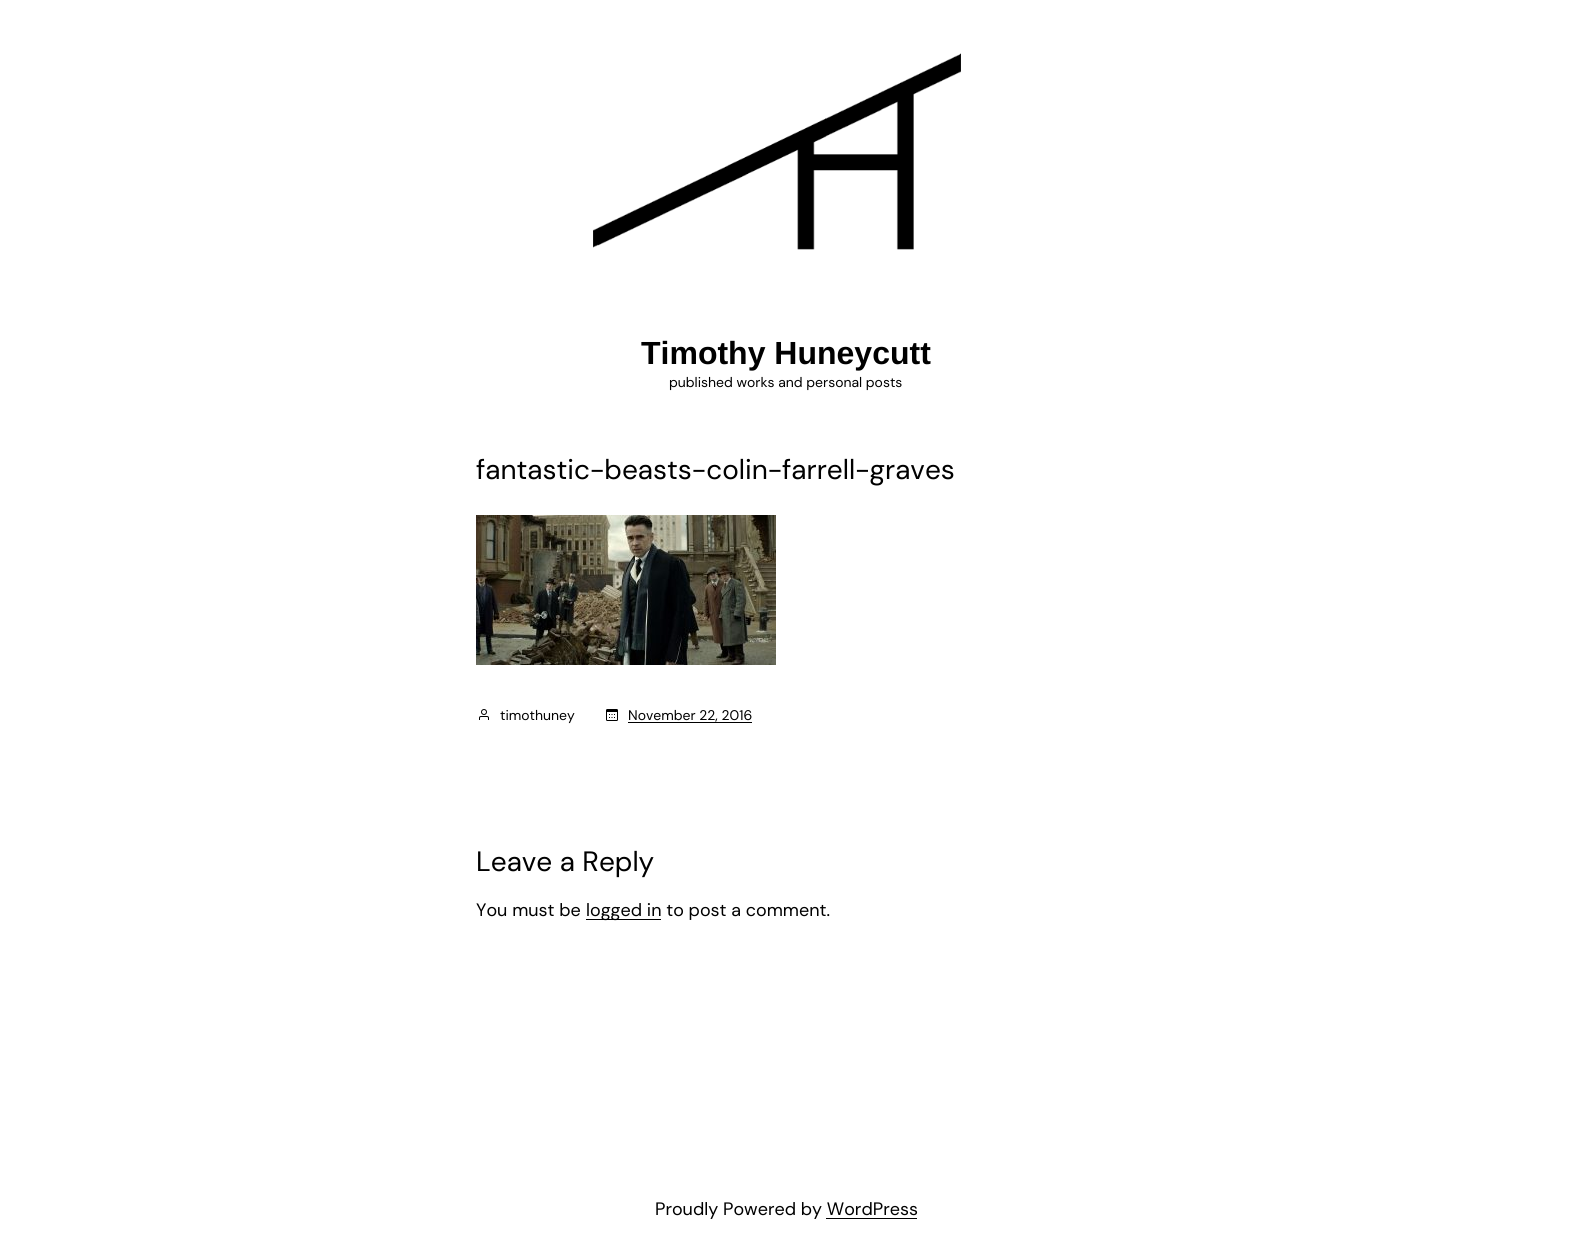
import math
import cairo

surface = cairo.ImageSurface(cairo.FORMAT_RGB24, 1572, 1254)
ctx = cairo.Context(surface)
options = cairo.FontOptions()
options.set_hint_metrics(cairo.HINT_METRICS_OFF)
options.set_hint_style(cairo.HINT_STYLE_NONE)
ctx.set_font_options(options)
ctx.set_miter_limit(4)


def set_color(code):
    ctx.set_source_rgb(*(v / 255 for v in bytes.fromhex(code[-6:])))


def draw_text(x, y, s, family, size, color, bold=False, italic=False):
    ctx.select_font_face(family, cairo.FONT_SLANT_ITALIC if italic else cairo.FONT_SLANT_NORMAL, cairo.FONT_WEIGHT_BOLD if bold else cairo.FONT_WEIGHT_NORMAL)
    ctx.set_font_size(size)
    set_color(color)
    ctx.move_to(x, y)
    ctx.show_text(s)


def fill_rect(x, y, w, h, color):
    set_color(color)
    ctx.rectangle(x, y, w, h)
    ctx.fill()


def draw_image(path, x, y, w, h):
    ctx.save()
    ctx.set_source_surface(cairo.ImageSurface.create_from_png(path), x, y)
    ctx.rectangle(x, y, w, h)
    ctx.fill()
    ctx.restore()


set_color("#ffffff")
ctx.paint()
draw_image("assets/img1.png", 593, 53, 368, 197)
draw_text(641, 364, "Timothy Huneycutt", "Liberation Sans", 32, "#000000", bold=True)
draw_text(669, 387, "published works and personal posts", "DM Sans", 14, "#000000")
draw_text(476, 479, "fantastic-beasts-colin-farrell-graves", "DM Sans", 28, "#000000")
draw_image("assets/img2.png", 476, 515, 300, 150)
draw_image("assets/img3.png", 479, 709, 10, 11)
draw_text(500, 720, "timothuney", "DM Sans", 14, "#000000")
draw_image("assets/img4.png", 606, 709, 12, 12)
draw_text(628, 720, "November 22, 2016", "DM Sans", 14, "#000000")
fill_rect(628, 722, 124, 1, "#000000")
draw_text(476, 871, "Leave a Reply", "DM Sans", 28, "#000000")
draw_text(476, 916, "You must be", "DM Sans", 18, "#000000")
fill_rect(586, 919, 75, 1, "#000000")
draw_text(586, 916, "logged in to post a comment.", "DM Sans", 18, "#000000")
draw_text(655, 1215, "Proudly Powered by WordPress", "DM Sans", 18, "#000000")
fill_rect(826, 1218, 91, 1, "#000000")
surface.write_to_png("output.png")
